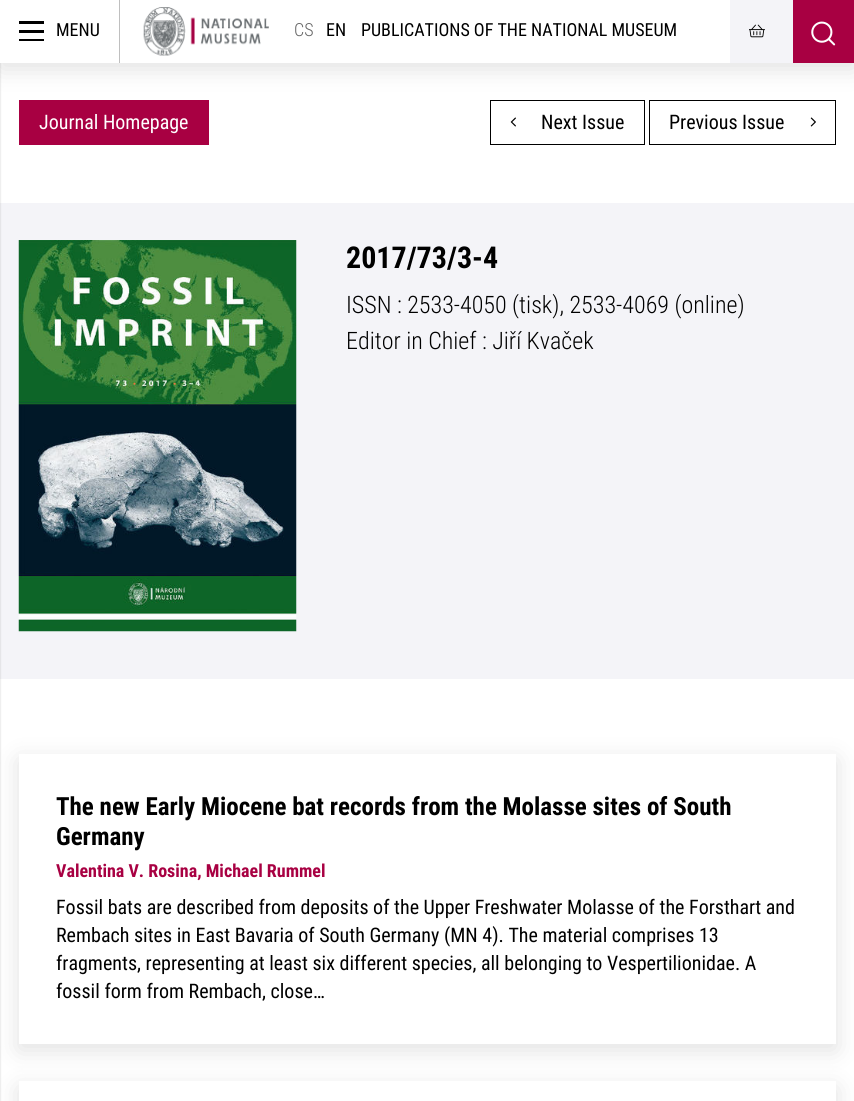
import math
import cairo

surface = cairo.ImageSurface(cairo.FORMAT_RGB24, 854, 1101)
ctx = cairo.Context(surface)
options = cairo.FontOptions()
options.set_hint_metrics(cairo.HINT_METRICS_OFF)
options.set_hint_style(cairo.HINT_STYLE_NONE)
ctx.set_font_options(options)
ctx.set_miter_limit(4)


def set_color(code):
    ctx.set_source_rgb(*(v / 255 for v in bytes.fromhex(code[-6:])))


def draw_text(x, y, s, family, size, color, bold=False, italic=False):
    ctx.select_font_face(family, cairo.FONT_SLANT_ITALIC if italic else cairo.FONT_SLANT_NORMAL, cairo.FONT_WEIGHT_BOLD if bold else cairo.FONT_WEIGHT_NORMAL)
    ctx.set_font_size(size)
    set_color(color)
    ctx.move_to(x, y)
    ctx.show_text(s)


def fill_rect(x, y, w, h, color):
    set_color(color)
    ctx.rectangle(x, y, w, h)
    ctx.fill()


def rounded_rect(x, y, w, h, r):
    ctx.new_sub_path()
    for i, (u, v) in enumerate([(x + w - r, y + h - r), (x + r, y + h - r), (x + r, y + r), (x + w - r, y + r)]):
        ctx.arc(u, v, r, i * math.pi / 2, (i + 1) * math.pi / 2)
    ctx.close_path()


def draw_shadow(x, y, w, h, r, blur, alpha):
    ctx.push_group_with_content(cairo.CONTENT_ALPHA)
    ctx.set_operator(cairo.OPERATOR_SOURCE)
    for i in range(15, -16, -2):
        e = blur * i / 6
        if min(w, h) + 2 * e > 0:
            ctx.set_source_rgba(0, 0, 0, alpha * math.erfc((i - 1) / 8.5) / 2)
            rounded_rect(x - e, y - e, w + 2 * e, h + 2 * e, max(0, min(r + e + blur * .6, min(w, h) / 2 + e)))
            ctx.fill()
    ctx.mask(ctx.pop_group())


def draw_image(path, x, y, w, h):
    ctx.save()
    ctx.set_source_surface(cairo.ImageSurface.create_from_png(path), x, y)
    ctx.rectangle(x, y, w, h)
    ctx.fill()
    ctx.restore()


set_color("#ffffff")
ctx.paint()
fill_rect(19, 100, 190, 45, "#a80042")
ctx.rectangle(490.5, 100.5, 154, 44)
set_color("#000000")
ctx.set_line_width(1)
ctx.stroke()
ctx.rectangle(649.5, 100.5, 186, 44)
ctx.stroke()
set_color("#000000")
draw_shadow(0, 6, 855, 63, 0, 12.5, 0.12)
fill_rect(120, 0, 610, 63, "#ffffff")
fill_rect(0, 203, 854, 476, "#f4f4f8")
set_color("#000000")
draw_shadow(-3, 3, 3, 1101, 0, 1, 0.2)
fill_rect(0, 0, 119, 63, "#ffffff")
fill_rect(119, 0, 1, 63, "#bfbfbf")
fill_rect(19, 21, 25, 3, "#000000")
fill_rect(19, 30, 25, 3, "#000000")
fill_rect(19, 39, 25, 2, "#000000")
draw_text(56, 36, "MENU", "Roboto Condensed", 18, "#000000")
draw_image("assets/img1.png", 143, 7, 126, 49)
draw_text(294, 36, "CS", "Roboto Condensed Light", 18, "#666666")
draw_text(326, 36, "EN", "Roboto Condensed", 18, "#000000")
draw_text(361, 36, "PUBLICATIONS OF THE NATIONAL MUSEUM", "Roboto Condensed", 18, "#000000")
fill_rect(730, 0, 63, 63, "#f4f4f8")
draw_image("assets/img2.png", 749, 24, 16, 14)
fill_rect(793, 0, 61, 63, "#a80042")
draw_image("assets/img3.png", 811, 21, 25, 25)
draw_text(39, 129, "Journal Homepage", "Roboto Condensed", 20, "#ffffff")
draw_image("assets/img4.png", 510, 117, 6, 10)
draw_text(541, 129, "Next Issue", "Roboto Condensed", 20, "#000000")
draw_text(669, 129, "Previous Issue", "Roboto Condensed", 20, "#000000")
draw_image("assets/img5.png", 810, 117, 6, 10)
draw_image("assets/img6.png", 18, 240, 279, 392)
draw_text(346, 268, "2017/73/3-4", "Roboto Condensed", 30, "#000000", bold=True)
draw_text(346, 313, "ISSN : 2533-4050 (tisk), 2533-4069 (online)", "Roboto Condensed Light", 24, "#000000")
draw_text(346, 349, "Editor in Chief : Jiří Kvaček", "Roboto Condensed Light", 24, "#000000")
set_color("#000000")
draw_shadow(19, 760, 817, 290, 0, 12.5, 0.12)
fill_rect(19, 754, 817, 290, "#ffffff")
draw_text(56, 815, "The new Early Miocene bat records from the Molasse sites of South", "Roboto Condensed", 25, "#000000", bold=True)
draw_text(56, 845, "Germany", "Roboto Condensed", 25, "#000000", bold=True)
draw_text(56, 877, "Valentina V. Rosina, Michael Rummel", "Roboto Condensed", 18, "#a80042", bold=True)
draw_text(56, 914, "Fossil bats are described from deposits of the Upper Freshwater Molasse of the Forsthart and", "Roboto Condensed", 20, "#000000")
draw_text(56, 942, "Rembach sites in East Bavaria of South Germany (MN 4). The material comprises 13", "Roboto Condensed", 20, "#000000")
draw_text(56, 970, "fragments, representing at least six different species, all belonging to Vespertilionidae. A", "Roboto Condensed", 20, "#000000")
draw_text(56, 998, "fossil form from Rembach, close…", "Roboto Condensed", 20, "#000000")
set_color("#000000")
draw_shadow(19, 1088, 817, 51, 0, 12.5, 0.12)
fill_rect(19, 1081, 817, 20, "#ffffff")
surface.write_to_png("output.png")
